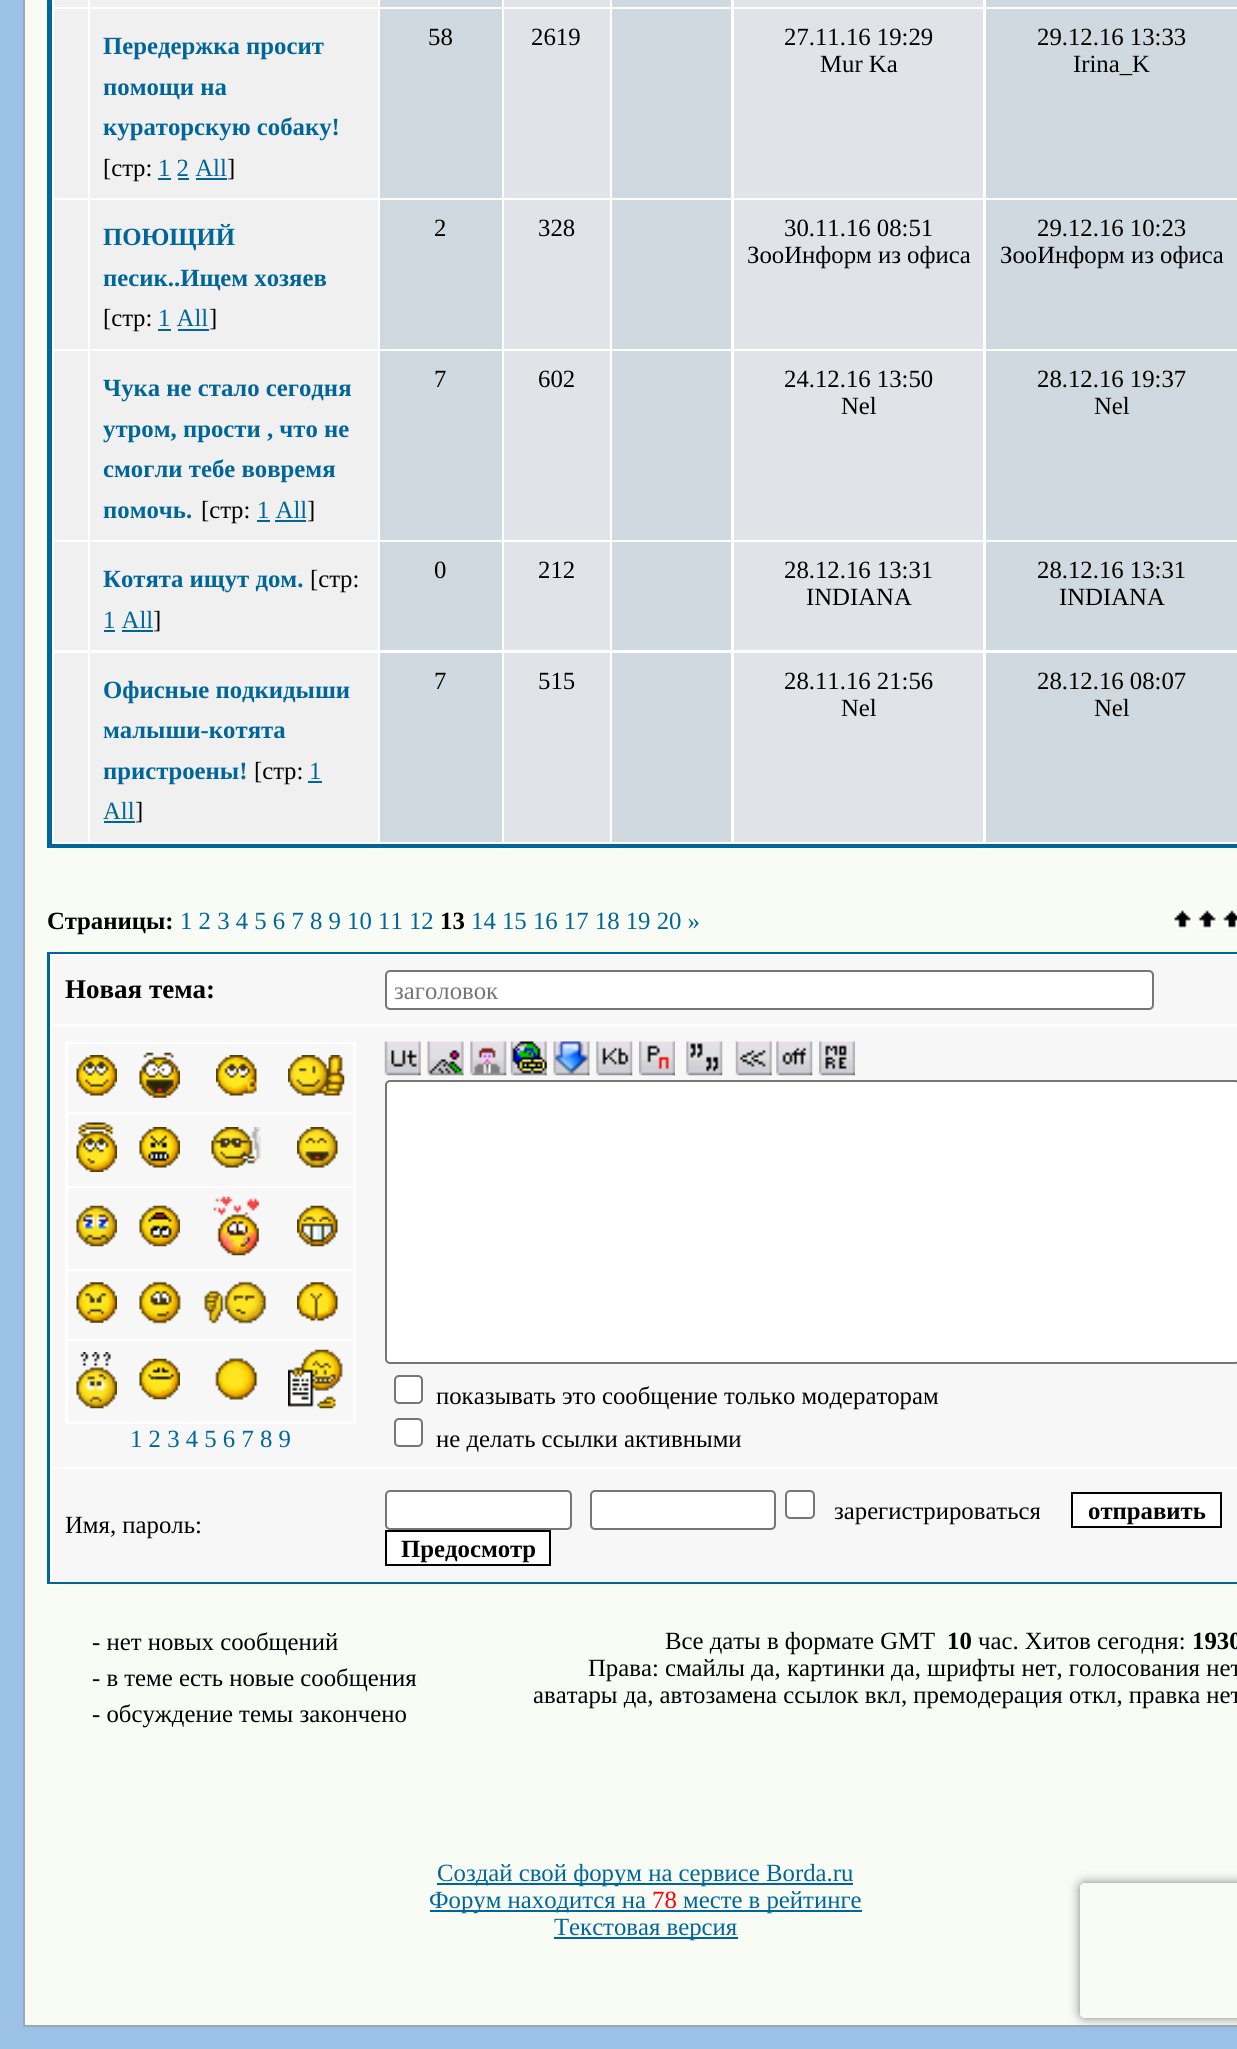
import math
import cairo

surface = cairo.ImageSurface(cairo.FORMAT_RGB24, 1237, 2049)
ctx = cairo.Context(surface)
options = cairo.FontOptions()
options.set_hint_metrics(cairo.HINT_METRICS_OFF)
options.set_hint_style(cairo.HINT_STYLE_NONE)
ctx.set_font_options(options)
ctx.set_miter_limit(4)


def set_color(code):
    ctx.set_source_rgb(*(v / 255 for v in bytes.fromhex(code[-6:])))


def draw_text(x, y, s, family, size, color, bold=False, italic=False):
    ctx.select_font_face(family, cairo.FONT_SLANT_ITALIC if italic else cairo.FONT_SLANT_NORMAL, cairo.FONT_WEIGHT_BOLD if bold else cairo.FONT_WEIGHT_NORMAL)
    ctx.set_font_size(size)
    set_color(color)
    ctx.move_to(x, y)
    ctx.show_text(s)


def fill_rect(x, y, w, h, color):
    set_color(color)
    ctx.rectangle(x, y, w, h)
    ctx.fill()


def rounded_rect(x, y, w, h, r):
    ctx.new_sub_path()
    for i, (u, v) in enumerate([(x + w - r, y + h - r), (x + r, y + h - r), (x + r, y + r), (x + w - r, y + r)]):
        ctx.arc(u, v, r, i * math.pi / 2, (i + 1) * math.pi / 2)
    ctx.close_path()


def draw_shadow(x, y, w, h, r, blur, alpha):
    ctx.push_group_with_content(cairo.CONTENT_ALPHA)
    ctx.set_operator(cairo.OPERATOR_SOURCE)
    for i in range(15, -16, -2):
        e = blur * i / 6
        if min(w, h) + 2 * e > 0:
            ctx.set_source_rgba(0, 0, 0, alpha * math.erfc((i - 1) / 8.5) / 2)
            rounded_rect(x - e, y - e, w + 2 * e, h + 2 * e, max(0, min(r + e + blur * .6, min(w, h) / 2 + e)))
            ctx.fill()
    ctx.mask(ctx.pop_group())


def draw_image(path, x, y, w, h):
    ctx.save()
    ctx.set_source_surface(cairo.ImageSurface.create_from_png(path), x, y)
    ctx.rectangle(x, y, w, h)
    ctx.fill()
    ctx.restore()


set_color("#9bc1e6")
ctx.paint()
fill_rect(23, 0, 1214, 2027, "#98aab1")
fill_rect(25, 0, 1212, 2025, "#f8fcf5")
fill_rect(47, 0, 1190, 848, "#006699")
fill_rect(52, 0, 1185, 844, "#ffffff")
fill_rect(54, 0, 34, 7, "#f0f0f0")
fill_rect(90, 0, 288, 7, "#f0f0f0")
fill_rect(380, 0, 122, 7, "#d0d8e0")
fill_rect(504, 0, 106, 7, "#e0e4e8")
fill_rect(612, 0, 119, 7, "#d0d8e0")
fill_rect(734, 0, 249, 7, "#e0e4e8")
fill_rect(986, 0, 251, 7, "#d0d8e0")
fill_rect(54, 9, 34, 189, "#f0f0f0")
fill_rect(90, 9, 288, 189, "#f0f0f0")
draw_text(103, 54, "Передержка просит", "Liberation Serif", 24.75, "#006699", bold=True)
draw_text(103, 95, "помощи на", "Liberation Serif", 24.75, "#006699", bold=True)
draw_text(103, 135, "кураторскую собаку!", "Liberation Serif", 24.75, "#006699", bold=True)
draw_text(103, 176, "[стр:", "Liberation Serif", 24.75, "#000000")
draw_text(158, 176, "1 2 All", "Liberation Serif", 24.75, "#006699")
fill_rect(158, 178, 13, 2, "#006699")
fill_rect(178, 178, 11, 2, "#006699")
draw_text(227, 176, "]", "Liberation Serif", 24.75, "#000000")
fill_rect(196, 178, 31, 2, "#006699")
fill_rect(380, 9, 122, 189, "#d0d8e0")
draw_text(428, 45, "58", "Liberation Serif", 24.75, "#000000")
fill_rect(504, 9, 106, 189, "#e0e4e8")
draw_text(531, 45, "2619", "Liberation Serif", 24.75, "#000000")
fill_rect(612, 9, 119, 189, "#d0d8e0")
fill_rect(734, 9, 249, 189, "#e0e4e8")
draw_text(784, 45, "27.11.16 19:29", "Liberation Serif", 24.75, "#000000")
draw_text(820, 72, "Mur Ka", "Liberation Serif", 24.75, "#000000")
fill_rect(986, 9, 251, 189, "#d0d8e0")
draw_text(1037, 45, "29.12.16 13:33", "Liberation Serif", 24.75, "#000000")
draw_text(1073, 72, "Irina_K", "Liberation Serif", 24.75, "#000000")
fill_rect(54, 200, 34, 149, "#f0f0f0")
fill_rect(90, 200, 288, 149, "#f0f0f0")
draw_text(103, 245, "ПОЮЩИЙ", "Liberation Serif", 24.75, "#006699", bold=True)
draw_text(103, 286, "песик..Ищем хозяев", "Liberation Serif", 24.75, "#006699", bold=True)
draw_text(103, 326, "[стр:", "Liberation Serif", 24.75, "#000000")
draw_text(158, 326, "1 All", "Liberation Serif", 24.75, "#006699")
fill_rect(158, 329, 13, 2, "#006699")
draw_text(209, 326, "]", "Liberation Serif", 24.75, "#000000")
fill_rect(178, 329, 31, 2, "#006699")
fill_rect(380, 200, 122, 149, "#d0d8e0")
draw_text(434, 236, "2", "Liberation Serif", 24.75, "#000000")
fill_rect(504, 200, 106, 149, "#e0e4e8")
draw_text(538, 236, "328", "Liberation Serif", 24.75, "#000000")
fill_rect(612, 200, 119, 149, "#d0d8e0")
fill_rect(734, 200, 249, 149, "#e0e4e8")
draw_text(784, 236, "30.11.16 08:51", "Liberation Serif", 24.75, "#000000")
draw_text(747, 263, "ЗооИнформ из офиса", "Liberation Serif", 24.75, "#000000")
fill_rect(986, 200, 251, 149, "#d0d8e0")
draw_text(1037, 236, "29.12.16 10:23", "Liberation Serif", 24.75, "#000000")
draw_text(1000, 263, "ЗооИнформ из офиса", "Liberation Serif", 24.75, "#000000")
fill_rect(54, 351, 34, 189, "#f0f0f0")
fill_rect(90, 351, 288, 189, "#f0f0f0")
draw_text(103, 396, "Чука не стало сегодня", "Liberation Serif", 24.75, "#006699", bold=True)
draw_text(103, 437, "утром, прости , что не", "Liberation Serif", 24.75, "#006699", bold=True)
draw_text(103, 477, "смогли тебе вовремя", "Liberation Serif", 24.75, "#006699", bold=True)
draw_text(103, 518, "помочь.", "Liberation Serif", 24.75, "#006699", bold=True)
draw_text(201, 518, "[стр:", "Liberation Serif", 24.75, "#000000")
draw_text(257, 518, "1 All", "Liberation Serif", 24.75, "#006699")
fill_rect(257, 520, 13, 2, "#006699")
draw_text(307, 518, "]", "Liberation Serif", 24.75, "#000000")
fill_rect(275, 520, 31, 2, "#006699")
fill_rect(380, 351, 122, 189, "#d0d8e0")
draw_text(434, 387, "7", "Liberation Serif", 24.75, "#000000")
fill_rect(504, 351, 106, 189, "#e0e4e8")
draw_text(538, 387, "602", "Liberation Serif", 24.75, "#000000")
fill_rect(612, 351, 119, 189, "#d0d8e0")
fill_rect(734, 351, 249, 189, "#e0e4e8")
draw_text(784, 387, "24.12.16 13:50", "Liberation Serif", 24.75, "#000000")
draw_text(841, 414, "Nel", "Liberation Serif", 24.75, "#000000")
fill_rect(986, 351, 251, 189, "#d0d8e0")
draw_text(1037, 387, "28.12.16 19:37", "Liberation Serif", 24.75, "#000000")
draw_text(1094, 414, "Nel", "Liberation Serif", 24.75, "#000000")
fill_rect(54, 542, 34, 108, "#f0f0f0")
fill_rect(90, 542, 288, 108, "#f0f0f0")
draw_text(103, 587, "Котята ищут дом.", "Liberation Serif", 24.75, "#006699", bold=True)
draw_text(310, 587, "[стр:", "Liberation Serif", 24.75, "#000000")
draw_text(103, 628, "1 All", "Liberation Serif", 24.75, "#006699")
fill_rect(104, 630, 11, 2, "#006699")
draw_text(153, 628, "]", "Liberation Serif", 24.75, "#000000")
fill_rect(122, 630, 31, 2, "#006699")
fill_rect(380, 542, 122, 108, "#d0d8e0")
draw_text(434, 578, "0", "Liberation Serif", 24.75, "#000000")
fill_rect(504, 542, 106, 108, "#e0e4e8")
draw_text(538, 578, "212", "Liberation Serif", 24.75, "#000000")
fill_rect(612, 542, 119, 108, "#d0d8e0")
fill_rect(734, 542, 249, 108, "#e0e4e8")
draw_text(784, 578, "28.12.16 13:31", "Liberation Serif", 24.75, "#000000")
draw_text(806, 605, "INDIANA", "Liberation Serif", 24.75, "#000000")
fill_rect(986, 542, 251, 108, "#d0d8e0")
draw_text(1037, 578, "28.12.16 13:31", "Liberation Serif", 24.75, "#000000")
draw_text(1059, 605, "INDIANA", "Liberation Serif", 24.75, "#000000")
fill_rect(54, 653, 34, 189, "#f0f0f0")
fill_rect(90, 653, 288, 189, "#f0f0f0")
draw_text(103, 698, "Офисные подкидыши", "Liberation Serif", 24.75, "#006699", bold=True)
draw_text(103, 738, "малыши-котята", "Liberation Serif", 24.75, "#006699", bold=True)
draw_text(103, 779, "пристроены!", "Liberation Serif", 24.75, "#006699", bold=True)
draw_text(254, 779, "[стр:", "Liberation Serif", 24.75, "#000000")
draw_text(309, 779, "1", "Liberation Serif", 24.75, "#006699")
fill_rect(308, 781, 14, 2, "#006699")
draw_text(103, 819, "All", "Liberation Serif", 24.75, "#006699")
draw_text(135, 819, "]", "Liberation Serif", 24.75, "#000000")
fill_rect(104, 821, 31, 2, "#006699")
fill_rect(380, 653, 122, 189, "#d0d8e0")
draw_text(434, 689, "7", "Liberation Serif", 24.75, "#000000")
fill_rect(504, 653, 106, 189, "#e0e4e8")
draw_text(538, 689, "515", "Liberation Serif", 24.75, "#000000")
fill_rect(612, 653, 119, 189, "#d0d8e0")
fill_rect(734, 653, 249, 189, "#e0e4e8")
draw_text(784, 689, "28.11.16 21:56", "Liberation Serif", 24.75, "#000000")
draw_text(841, 716, "Nel", "Liberation Serif", 24.75, "#000000")
fill_rect(986, 653, 251, 189, "#d0d8e0")
draw_text(1037, 689, "28.12.16 08:07", "Liberation Serif", 24.75, "#000000")
draw_text(1094, 716, "Nel", "Liberation Serif", 24.75, "#000000")
draw_text(47, 929, "Страницы:", "Liberation Serif", 24.75, "#000000", bold=True)
draw_text(180, 929, "1 2 3 4 5 6 7 8 9 10 11 12", "Liberation Serif", 24.75, "#006699")
draw_text(440, 929, "13", "Liberation Serif", 24.75, "#000000", bold=True)
draw_text(471, 929, "14 15 16 17 18 19 20 »", "Liberation Serif", 24.75, "#006699")
draw_image("assets/img1.png", 1172, 909, 65, 20)
fill_rect(47, 952, 1190, 632, "#006699")
fill_rect(50, 954, 1187, 628, "#ffffff")
fill_rect(52, 956, 1185, 68, "#f7f7f7")
draw_text(65, 998, "Новая тема:", "Liberation Serif", 27, "#000000", bold=True)
set_color("#ffffff")
rounded_rect(386, 971, 767, 38, 4)
ctx.fill_preserve()
set_color("#767676")
ctx.stroke()
draw_text(394, 999, "заголовок", "Liberation Serif", 24.75, "#757575")
fill_rect(52, 1026, 1185, 441, "#f7f7f7")
fill_rect(65, 1042, 291, 382, "#ffffff")
fill_rect(68, 1044, 285, 68, "#f7f7f7")
draw_image("assets/img2.png", 76, 1055, 41, 41)
draw_image("assets/img3.png", 139, 1052, 41, 46)
draw_image("assets/img4.png", 216, 1055, 41, 41)
draw_image("assets/img5.png", 288, 1055, 57, 41)
fill_rect(68, 1114, 285, 72, "#f7f7f7")
draw_image("assets/img6.png", 76, 1122, 41, 50)
draw_image("assets/img7.png", 139, 1127, 41, 41)
draw_image("assets/img8.png", 211, 1127, 50, 41)
draw_image("assets/img9.png", 297, 1127, 41, 41)
fill_rect(68, 1188, 285, 81, "#f7f7f7")
draw_image("assets/img10.png", 76, 1205, 41, 42)
draw_image("assets/img11.png", 139, 1205, 41, 42)
draw_image("assets/img12.png", 213, 1196, 46, 60)
draw_image("assets/img13.png", 297, 1205, 41, 42)
fill_rect(68, 1271, 285, 68, "#f7f7f7")
draw_image("assets/img14.png", 76, 1282, 41, 41)
draw_image("assets/img15.png", 139, 1281, 42, 43)
draw_image("assets/img16.png", 204, 1281, 63, 43)
draw_image("assets/img17.png", 297, 1282, 41, 40)
fill_rect(68, 1341, 285, 81, "#f7f7f7")
draw_image("assets/img18.png", 76, 1352, 41, 57)
draw_image("assets/img19.png", 139, 1358, 41, 42)
draw_image("assets/img20.png", 215, 1358, 43, 42)
draw_image("assets/img21.png", 288, 1349, 55, 60)
draw_text(130, 1447, "1 2 3 4 5 6 7 8 9", "Liberation Serif", 24.75, "#006699")
draw_image("assets/img22.png", 384, 1041, 37, 35)
draw_image("assets/img23.png", 427, 1041, 37, 35)
draw_image("assets/img24.png", 470, 1041, 37, 35)
draw_image("assets/img25.png", 510, 1041, 37, 35)
draw_image("assets/img26.png", 553, 1041, 37, 35)
draw_image("assets/img27.png", 596, 1041, 37, 35)
draw_image("assets/img28.png", 639, 1041, 36, 35)
draw_image("assets/img29.png", 686, 1041, 37, 35)
draw_image("assets/img30.png", 735, 1041, 37, 35)
draw_image("assets/img31.png", 776, 1041, 37, 35)
draw_image("assets/img32.png", 819, 1041, 36, 35)
set_color("#ffffff")
rounded_rect(386, 1081, 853, 282, 4)
ctx.fill_preserve()
set_color("#767676")
ctx.stroke()
set_color("#ffffff")
rounded_rect(395, 1376, 27, 27, 4)
ctx.fill_preserve()
set_color("#767676")
ctx.stroke()
draw_text(436, 1404, "показывать это сообщение только модераторам", "Liberation Serif", 24.75, "#000000")
set_color("#ffffff")
rounded_rect(395, 1419, 27, 27, 4)
ctx.fill_preserve()
set_color("#767676")
ctx.stroke()
draw_text(436, 1447, "не делать ссылки активными", "Liberation Serif", 24.75, "#000000")
fill_rect(52, 1469, 1185, 111, "#f7f7f7")
draw_text(65, 1533, "Имя, пароль:", "Liberation Serif", 24.75, "#000000")
set_color("#ffffff")
rounded_rect(386, 1491, 185, 38, 4)
ctx.fill_preserve()
set_color("#767676")
ctx.stroke()
set_color("#ffffff")
rounded_rect(591, 1491, 184, 38, 4)
ctx.fill_preserve()
set_color("#767676")
ctx.stroke()
set_color("#ffffff")
rounded_rect(786, 1491, 28, 27, 4)
ctx.fill_preserve()
set_color("#767676")
ctx.stroke()
draw_text(834, 1519, "зарегистрироваться", "Liberation Serif", 24.75, "#000000")
set_color("#ffffff")
ctx.rectangle(1072, 1493, 149, 34)
ctx.fill_preserve()
set_color("#000000")
ctx.stroke()
draw_text(1088, 1519, "отправить", "Liberation Serif", 24.75, "#000000", bold=True)
set_color("#ffffff")
ctx.rectangle(386, 1531, 164, 34)
ctx.fill_preserve()
set_color("#000000")
ctx.stroke()
draw_text(401, 1557, "Предосмотр", "Liberation Serif", 24.75, "#000000", bold=True)
draw_text(92, 1650, "- нет новых сообщений", "Liberation Serif", 24.75, "#000000")
draw_text(92, 1686, "- в теме есть новые сообщения", "Liberation Serif", 24.75, "#000000")
draw_text(92, 1722, "- обсуждение темы закончено", "Liberation Serif", 24.75, "#000000")
draw_text(665, 1649, "Все даты в формате GMT", "Liberation Serif", 24.75, "#000000")
draw_text(947, 1649, "10", "Liberation Serif", 24.75, "#000000", bold=True)
draw_text(978, 1649, "час. Хитов сегодня:", "Liberation Serif", 24.75, "#000000")
draw_text(1192, 1649, "1930", "Liberation Serif", 24.75, "#000000", bold=True)
draw_text(588, 1676, "Права: смайлы да, картинки да, шрифты нет, голосования нет", "Liberation Serif", 24.75, "#000000")
draw_text(533, 1703, "аватары да, автозамена ссылок вкл, премодерация откл, правка нет", "Liberation Serif", 24.75, "#000000")
fill_rect(437, 1883, 416, 2, "#006699")
draw_text(437, 1881, "Создай свой форум на сервисе Borda.ru", "Liberation Serif", 24.75, "#006699")
fill_rect(430, 1910, 432, 2, "#006699")
draw_text(429, 1908, "Форум находится на", "Liberation Serif", 24.75, "#006699")
draw_text(652, 1908, "78", "Liberation Serif", 24.75, "#ff0000")
draw_text(683, 1908, "месте в рейтинге", "Liberation Serif", 24.75, "#006699")
fill_rect(554, 1937, 184, 2, "#006699")
draw_text(554, 1935, "Текстовая версия", "Liberation Serif", 24.75, "#006699")
ctx.save()
ctx.set_fill_rule(cairo.FILL_RULE_EVEN_ODD)
ctx.new_path()
ctx.move_to(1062, 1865)
ctx.line_to(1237, 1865)
ctx.line_to(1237, 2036)
ctx.line_to(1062, 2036)
ctx.close_path()
ctx.move_to(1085, 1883)
ctx.line_to(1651, 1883)
ctx.curve_to(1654, 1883, 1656, 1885, 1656, 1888)
ctx.line_to(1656, 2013)
ctx.curve_to(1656, 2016, 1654, 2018, 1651, 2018)
ctx.line_to(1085, 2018)
ctx.curve_to(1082, 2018, 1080, 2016, 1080, 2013)
ctx.line_to(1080, 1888)
ctx.curve_to(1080, 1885, 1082, 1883, 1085, 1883)
ctx.close_path()
ctx.clip()
set_color("#808080")
draw_shadow(1080, 1883, 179, 135, 5, 5.5, 1)
ctx.restore()
surface.write_to_png("output.png")
